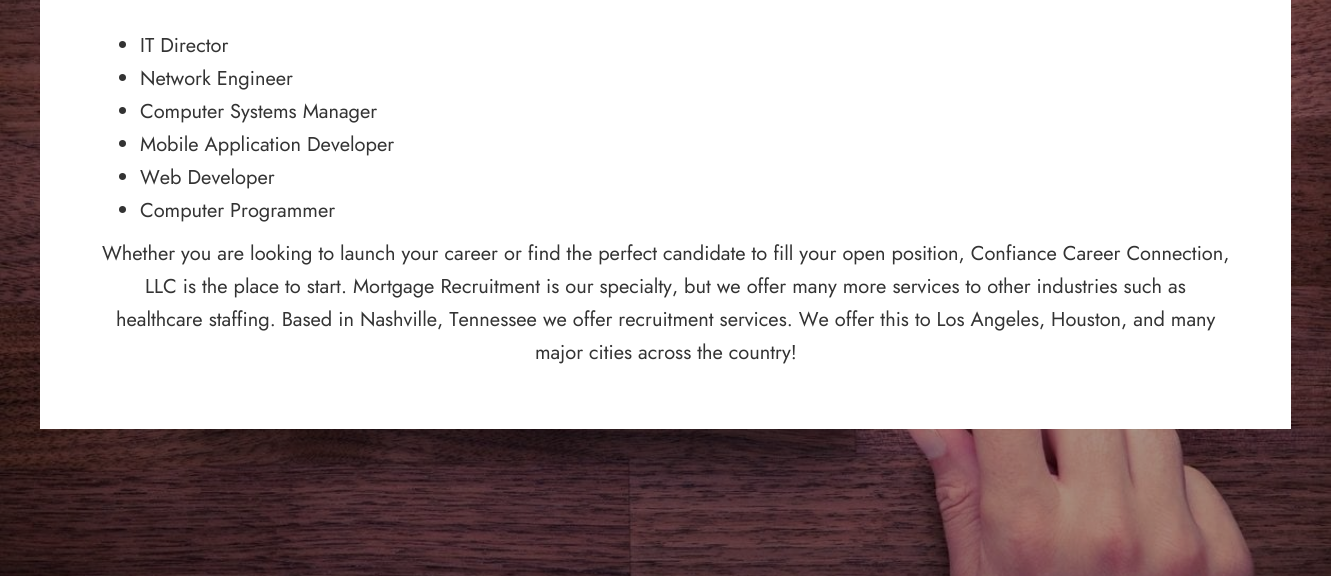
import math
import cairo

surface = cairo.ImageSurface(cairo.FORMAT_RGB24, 1331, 576)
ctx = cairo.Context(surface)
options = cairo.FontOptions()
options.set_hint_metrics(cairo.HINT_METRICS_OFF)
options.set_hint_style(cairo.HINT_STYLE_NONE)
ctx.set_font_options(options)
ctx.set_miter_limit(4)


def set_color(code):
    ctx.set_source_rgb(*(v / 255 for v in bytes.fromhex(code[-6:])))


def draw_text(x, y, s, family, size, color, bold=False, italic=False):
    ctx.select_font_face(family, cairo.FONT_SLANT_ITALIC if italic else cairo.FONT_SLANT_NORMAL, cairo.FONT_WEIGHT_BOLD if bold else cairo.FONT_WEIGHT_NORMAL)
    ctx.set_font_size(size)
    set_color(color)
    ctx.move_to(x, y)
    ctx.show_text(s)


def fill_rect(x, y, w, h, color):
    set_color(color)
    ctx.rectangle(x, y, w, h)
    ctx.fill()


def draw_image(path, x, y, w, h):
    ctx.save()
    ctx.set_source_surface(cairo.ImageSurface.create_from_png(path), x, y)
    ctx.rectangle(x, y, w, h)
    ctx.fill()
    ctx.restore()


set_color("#ffffff")
ctx.paint()
draw_image("assets/img1.png", 0, 0, 1331, 576)
fill_rect(40, 0, 1251, 429, "#ffffff")
set_color("#333333")
ctx.arc(122.5, 44.5, 3.5, 0, 2 * math.pi)
ctx.fill()
draw_text(140, 52, "IT Director", "Jost", 20, "#333333")
ctx.new_path()
ctx.arc(122.5, 77.5, 3.5, 0, 2 * math.pi)
ctx.fill()
draw_text(140, 85, "Network Engineer", "Jost", 20, "#333333")
ctx.new_path()
ctx.arc(122.5, 110.5, 3.5, 0, 2 * math.pi)
ctx.fill()
draw_text(140, 118, "Computer Systems Manager", "Jost", 20, "#333333")
ctx.new_path()
ctx.arc(122.5, 143.5, 3.5, 0, 2 * math.pi)
ctx.fill()
draw_text(140, 151, "Mobile Application Developer", "Jost", 20, "#333333")
ctx.new_path()
ctx.arc(122.5, 176.5, 3.5, 0, 2 * math.pi)
ctx.fill()
draw_text(140, 184, "Web Developer", "Jost", 20, "#333333")
ctx.new_path()
ctx.arc(122.5, 209.5, 3.5, 0, 2 * math.pi)
ctx.fill()
draw_text(140, 217, "Computer Programmer", "Jost", 20, "#333333")
draw_text(102, 260, "Whether you are looking to launch your career or find the perfect candidate to fill your open position, Confiance Career Connection,", "Jost", 20, "#333333")
draw_text(145, 293, "LLC is the place to start. Mortgage Recruitment is our specialty, but we offer many more services to other industries such as", "Jost", 20, "#333333")
draw_text(116, 326, "healthcare staffing. Based in Nashville, Tennessee we offer recruitment services. We offer this to Los Angeles, Houston, and many", "Jost", 20, "#333333")
draw_text(535, 359, "major cities across the country!", "Jost", 20, "#333333")
surface.write_to_png("output.png")
